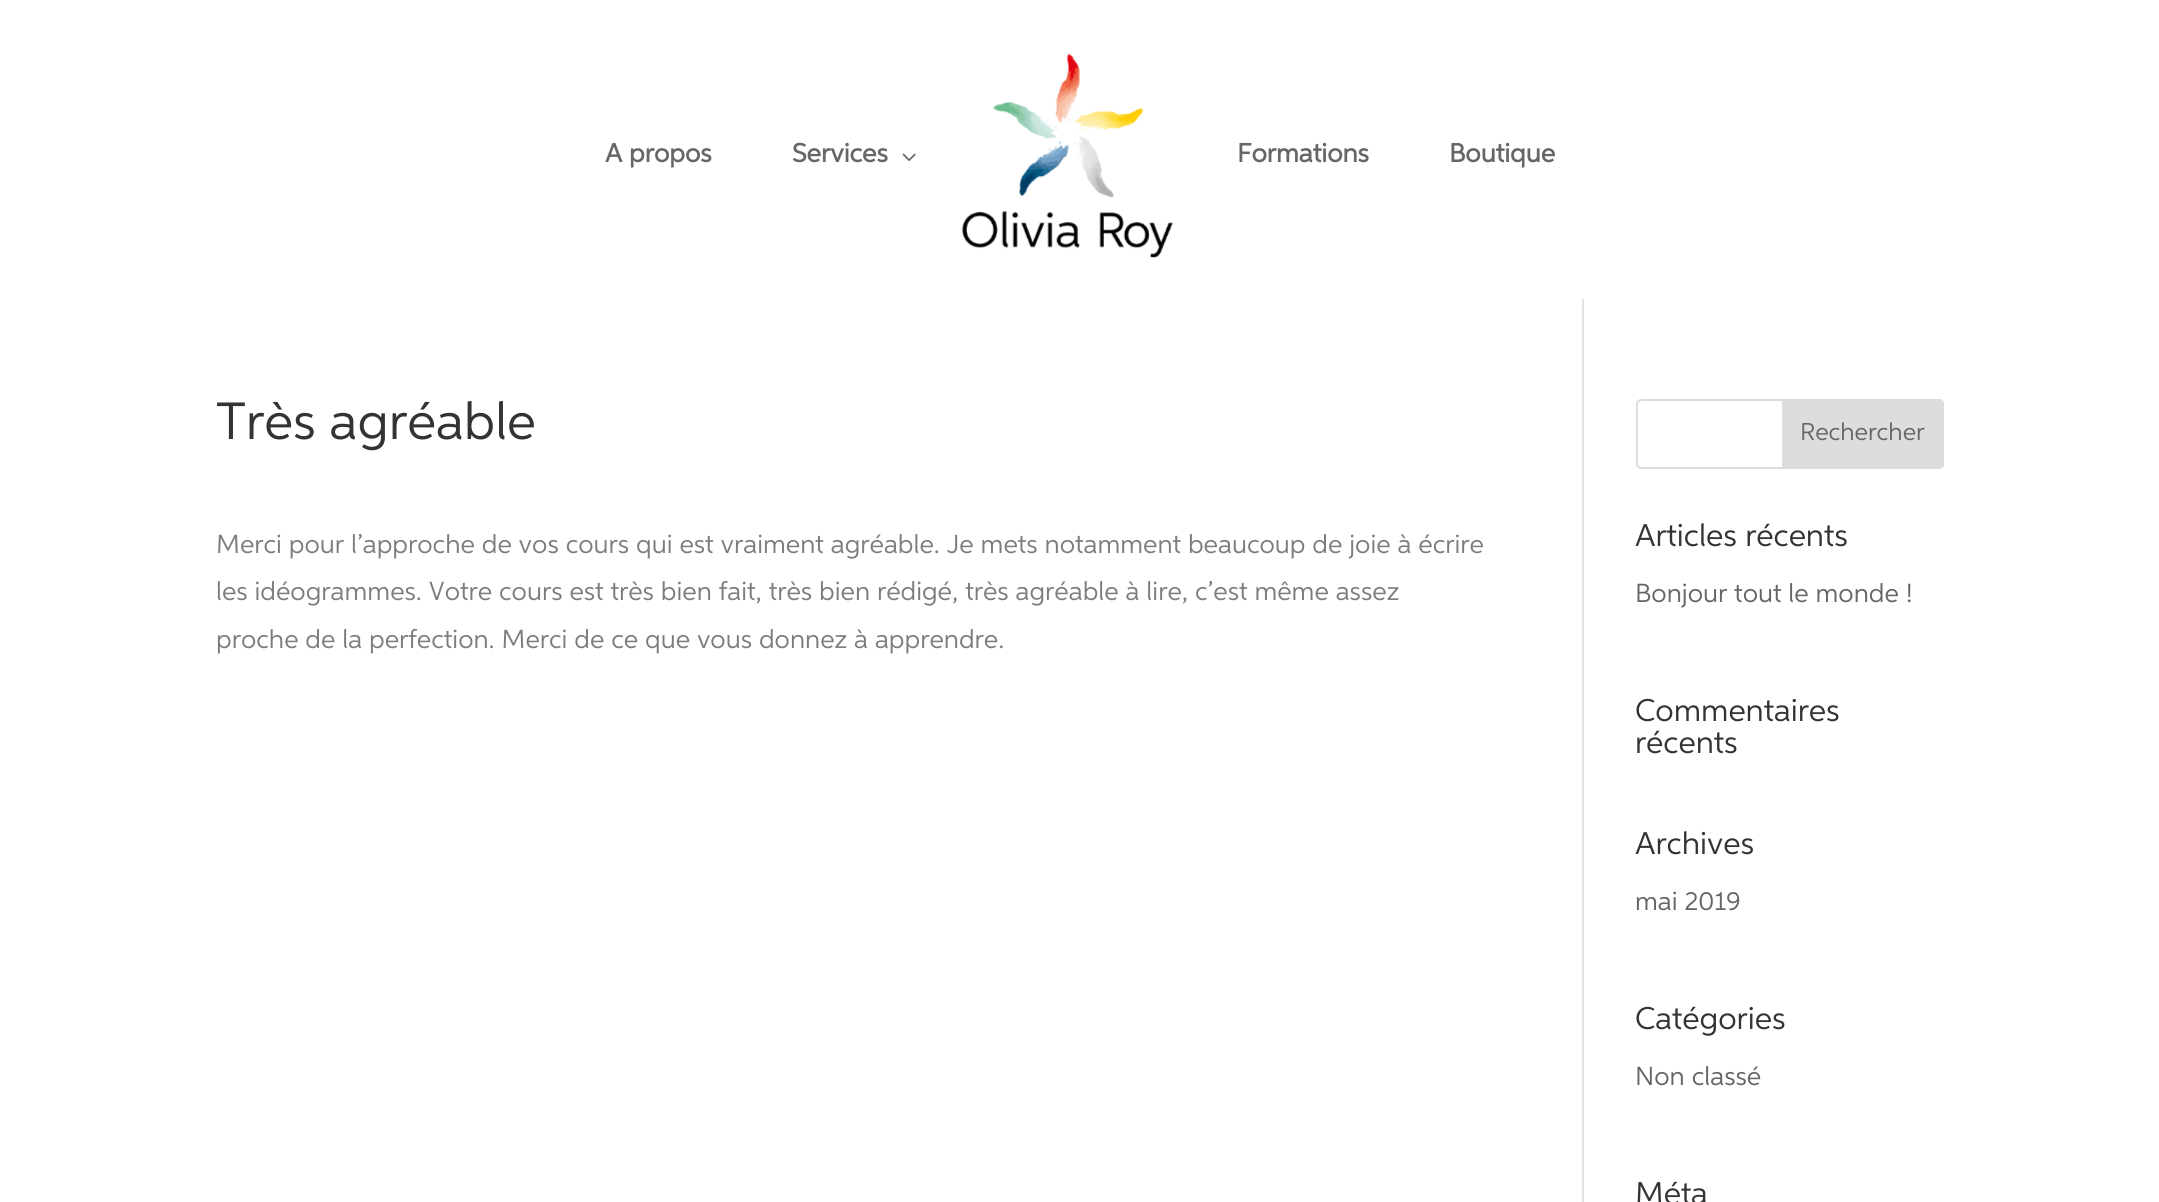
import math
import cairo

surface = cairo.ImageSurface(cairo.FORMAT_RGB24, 2159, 1202)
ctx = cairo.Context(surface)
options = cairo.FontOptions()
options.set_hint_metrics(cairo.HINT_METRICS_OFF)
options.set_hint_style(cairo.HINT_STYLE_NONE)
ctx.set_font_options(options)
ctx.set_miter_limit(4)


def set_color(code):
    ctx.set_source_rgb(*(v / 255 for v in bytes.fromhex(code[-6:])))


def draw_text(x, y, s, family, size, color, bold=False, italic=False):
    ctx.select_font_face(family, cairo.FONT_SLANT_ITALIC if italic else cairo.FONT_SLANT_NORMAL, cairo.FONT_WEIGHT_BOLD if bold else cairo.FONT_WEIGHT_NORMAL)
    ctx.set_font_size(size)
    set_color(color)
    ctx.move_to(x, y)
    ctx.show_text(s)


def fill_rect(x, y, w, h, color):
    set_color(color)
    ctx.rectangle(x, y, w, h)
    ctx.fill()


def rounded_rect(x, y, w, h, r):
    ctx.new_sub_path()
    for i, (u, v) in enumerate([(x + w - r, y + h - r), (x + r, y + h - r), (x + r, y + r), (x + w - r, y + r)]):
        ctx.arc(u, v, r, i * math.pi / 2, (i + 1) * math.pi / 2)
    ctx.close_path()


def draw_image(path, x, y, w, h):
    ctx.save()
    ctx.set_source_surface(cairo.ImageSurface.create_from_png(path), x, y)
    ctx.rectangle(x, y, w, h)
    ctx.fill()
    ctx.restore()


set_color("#ffffff")
ctx.paint()
fill_rect(1582, 298, 2, 904, "#e2e2e2")
fill_rect(1582, 298, 2, 1, "#ffffff")
draw_text(605, 162, "A propos", "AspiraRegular", 26.25, "#666666", bold=True)
draw_text(792, 162, "Services", "AspiraRegular", 26.25, "#666666", bold=True)
draw_image("assets/img1.png", 902, 153, 14, 8)
draw_image("assets/img2.png", 961, 54, 212, 204)
draw_text(1237, 162, "Formations", "AspiraRegular", 26.25, "#666666", bold=True)
draw_text(1449, 162, "Boutique", "AspiraRegular", 26.25, "#666666", bold=True)
draw_text(216, 439, "Très agréable", "AspiraRegular", 52.5, "#333333")
draw_text(216, 553, "Merci pour l’approche de vos cours qui est vraiment agréable. Je mets notamment beaucoup de joie à écrire", "AspiraRegular", 26.25, "#7d7d7d")
draw_text(216, 600, "les idéogrammes. Votre cours est très bien fait, très bien rédigé, très agréable à lire, c’est même assez", "AspiraRegular", 26.25, "#7d7d7d")
draw_text(216, 648, "proche de la perfection. Merci de ce que vous donnez à apprendre.", "AspiraRegular", 26.25, "#7d7d7d")
rounded_rect(1637, 400, 306, 68, 4)
set_color("#dddddd")
ctx.stroke()
ctx.new_path()
ctx.move_to(1783, 400)
ctx.line_to(1939, 400)
ctx.curve_to(1941, 400, 1943, 402, 1943, 404)
ctx.line_to(1943, 464)
ctx.curve_to(1943, 466, 1941, 468, 1939, 468)
ctx.line_to(1783, 468)
ctx.close_path()
ctx.fill_preserve()
ctx.stroke()
draw_text(1800, 440, "Rechercher", "AspiraRegular", 24.5, "#666666")
draw_text(1635, 546, "Articles récents", "AspiraRegular", 31.5, "#333333")
draw_text(1635, 602, "Bonjour tout le monde !", "AspiraRegular", 26.25, "#666666")
draw_text(1635, 721, "Commentaires", "AspiraRegular", 31.5, "#333333")
draw_text(1635, 753, "récents", "AspiraRegular", 31.5, "#333333")
draw_text(1635, 854, "Archives", "AspiraRegular", 31.5, "#333333")
draw_text(1635, 910, "mai 2019", "AspiraRegular", 26.25, "#666666")
draw_text(1635, 1029, "Catégories", "AspiraRegular", 31.5, "#333333")
draw_text(1635, 1085, "Non classé", "AspiraRegular", 26.25, "#666666")
draw_text(1635, 1204, "Méta", "AspiraRegular", 31.5, "#333333")
surface.write_to_png("output.png")
